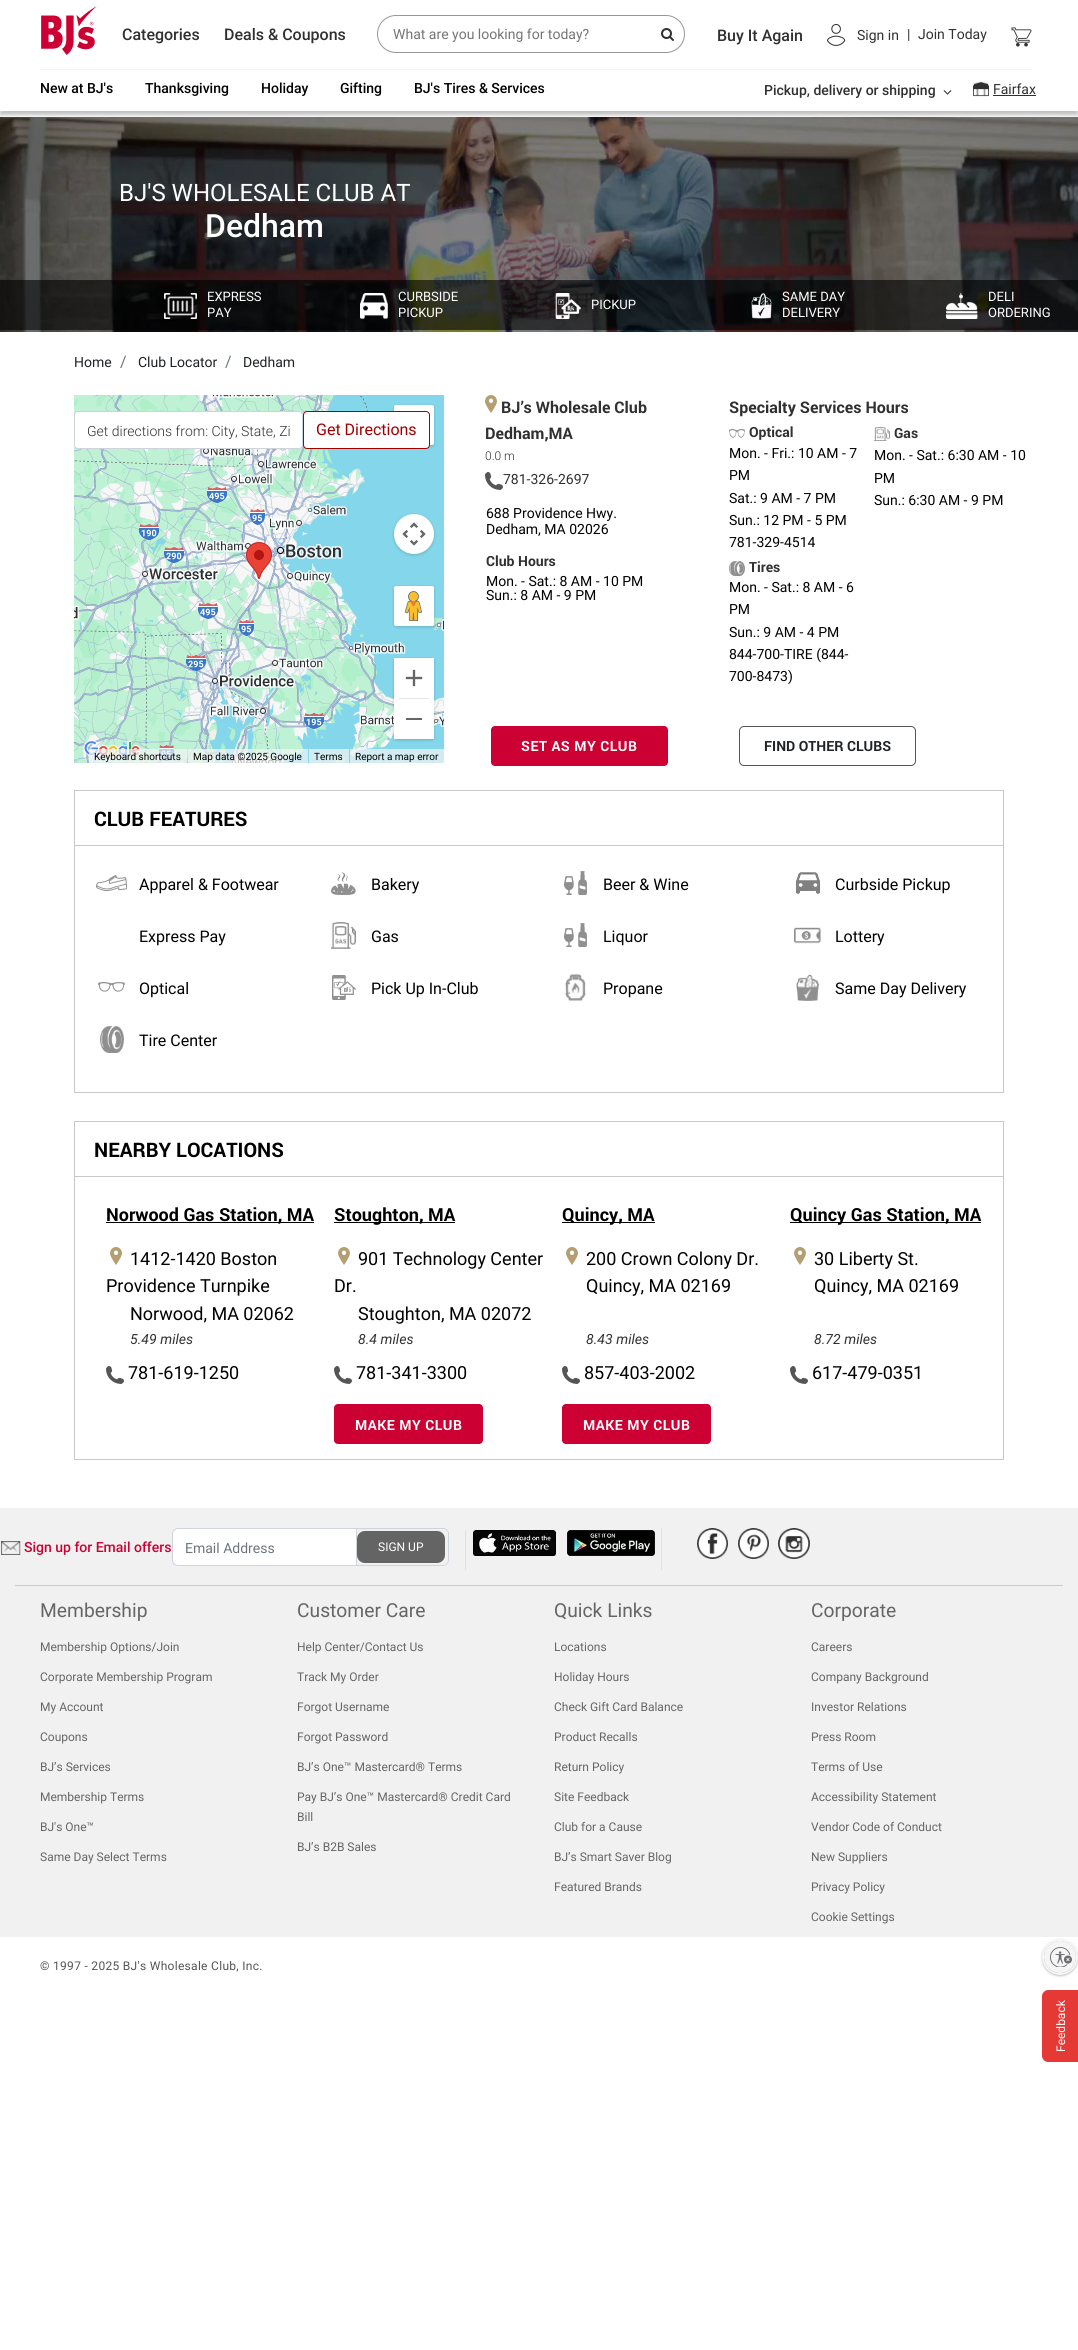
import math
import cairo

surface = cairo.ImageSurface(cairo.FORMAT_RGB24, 1078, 2350)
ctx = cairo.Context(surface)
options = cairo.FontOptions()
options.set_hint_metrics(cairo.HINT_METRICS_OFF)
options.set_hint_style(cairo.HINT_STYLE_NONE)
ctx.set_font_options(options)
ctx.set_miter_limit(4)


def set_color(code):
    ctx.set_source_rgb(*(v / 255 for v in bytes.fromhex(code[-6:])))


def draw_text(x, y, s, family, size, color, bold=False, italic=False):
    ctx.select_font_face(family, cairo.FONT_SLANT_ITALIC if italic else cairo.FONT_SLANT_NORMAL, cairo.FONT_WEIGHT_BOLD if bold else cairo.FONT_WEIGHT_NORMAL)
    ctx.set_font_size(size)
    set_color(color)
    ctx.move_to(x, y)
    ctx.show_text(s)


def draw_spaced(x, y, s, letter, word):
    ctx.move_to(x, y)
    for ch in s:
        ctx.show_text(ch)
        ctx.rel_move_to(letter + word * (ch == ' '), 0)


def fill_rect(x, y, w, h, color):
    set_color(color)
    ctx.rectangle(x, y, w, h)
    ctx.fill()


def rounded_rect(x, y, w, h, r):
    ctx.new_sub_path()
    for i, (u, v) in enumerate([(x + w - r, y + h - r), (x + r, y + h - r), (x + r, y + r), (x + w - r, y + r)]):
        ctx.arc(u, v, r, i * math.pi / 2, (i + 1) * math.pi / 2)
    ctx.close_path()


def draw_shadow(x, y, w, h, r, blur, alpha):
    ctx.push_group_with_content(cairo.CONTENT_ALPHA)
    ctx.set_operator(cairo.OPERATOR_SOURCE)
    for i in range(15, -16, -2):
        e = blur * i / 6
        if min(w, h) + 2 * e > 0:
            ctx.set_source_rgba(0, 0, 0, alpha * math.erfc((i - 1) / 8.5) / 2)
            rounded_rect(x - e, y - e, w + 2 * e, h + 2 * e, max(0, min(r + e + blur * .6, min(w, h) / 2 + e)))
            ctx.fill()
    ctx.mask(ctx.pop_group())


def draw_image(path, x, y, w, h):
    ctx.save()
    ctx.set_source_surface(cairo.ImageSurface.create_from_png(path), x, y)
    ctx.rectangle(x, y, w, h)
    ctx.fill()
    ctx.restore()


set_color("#ffffff")
ctx.paint()
ctx.save()
ctx.rectangle(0, 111, 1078, 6)
ctx.clip()
set_color("#000000")
draw_shadow(0, 4, 1078, 111, 0, 2, 0.25)
ctx.restore()
draw_image("assets/img1.png", 41, 6, 56, 49)
draw_text(122, 40, "Categories", "Roboto Medium", 16, "#303030")
draw_text(224, 40, "Deals & Coupons", "Roboto Medium", 16, "#303030")
rounded_rect(377.5, 15.5, 307, 37, 18.5)
set_color("#979797")
ctx.set_line_width(1)
ctx.stroke()
draw_text(393, 39, "What are you looking for today?", "Roboto", 14, "#757575")
draw_image("assets/img2.png", 661, 28, 13, 13)
draw_text(717, 41, "Buy It Again", "Roboto Medium", 16, "#303030")
draw_image("assets/img3.png", 827, 24, 19, 22)
draw_text(857, 40, "Sign in", "Roboto", 14, "#303030")
draw_text(907, 39, "|", "Roboto", 14, "#303030")
draw_text(918, 39, "Join Today", "Roboto", 14, "#303030")
draw_image("assets/img4.png", 1011, 27, 21, 20)
fill_rect(40, 69, 992, 1, "#f5f5f5")
draw_text(40, 93, "New at BJ's", "Roboto Medium", 14, "#000000")
draw_text(145, 93, "Thanksgiving", "Roboto Medium", 14, "#000000")
draw_text(261, 93, "Holiday", "Roboto Medium", 14, "#000000")
draw_text(340, 93, "Gifting", "Roboto Medium", 14, "#000000")
draw_text(414, 93, "BJ's Tires & Services", "Roboto Medium", 14, "#000000")
draw_text(764, 95, "Pickup, delivery or shipping", "Roboto Medium", 14, "#303030")
draw_image("assets/img5.png", 943, 90, 9, 5)
draw_image("assets/img6.png", 973, 81, 16, 16)
draw_text(993, 94, "Fairfax", "Roboto", 14, "#303030")
fill_rect(993, 95, 43, 1, "#303030")
draw_image("assets/img7.png", 0, 117, 1078, 215)
draw_text(119, 201, "BJ'S WHOLESALE CLUB AT", "Roboto", 24, "#ffffff")
draw_text(205, 237, "Dedham", "Roboto Medium", 32, "#ffffff")
ctx.set_source_rgba(0, 0, 0, 0.6)
ctx.rectangle(0, 280, 1078, 50)
ctx.fill()
draw_image("assets/img8.png", 164, 293, 33, 26)
draw_text(207, 301, "EXPRESS", "Roboto", 13, "#ffffff")
draw_text(207, 317, "PAY", "Roboto", 13, "#ffffff")
draw_image("assets/img9.png", 360, 293, 28, 26)
draw_text(398, 301, "CURBSIDE", "Roboto", 13, "#ffffff")
draw_text(398, 317, "PICKUP", "Roboto", 13, "#ffffff")
draw_image("assets/img10.png", 555, 293, 26, 26)
draw_text(591, 309, "PICKUP", "Roboto", 13, "#ffffff")
draw_image("assets/img11.png", 751, 293, 21, 26)
draw_text(782, 301, "SAME DAY", "Roboto", 13, "#ffffff")
draw_text(782, 317, "DELIVERY", "Roboto", 13, "#ffffff")
draw_image("assets/img12.png", 946, 293, 32, 26)
draw_text(988, 301, "DELI", "Roboto", 13, "#ffffff")
draw_text(988, 317, "ORDERING", "Roboto", 13, "#ffffff")
draw_text(74, 367, "Home", "Roboto", 14, "#1f2325")
draw_text(120, 367, "/", "Roboto", 16, "#6c757d")
draw_text(138, 367, "Club Locator", "Roboto", 14, "#1f2325")
draw_text(225, 367, "/", "Roboto", 16, "#6c757d")
draw_text(243, 367, "Dedham", "Roboto", 14, "#1f2325")
draw_image("assets/img13.png", 74, 395, 86, 235)
draw_image("assets/img14.png", 160, 395, 256, 235)
set_color("#ffffff")
rounded_rect(74.5, 411.5, 228, 37, 3.5)
ctx.fill_preserve()
set_color("#ced4da")
ctx.stroke()
draw_text(87, 436, "Get directions from: City, State, Zi", "Roboto Light", 14, "#303030")
draw_image("assets/img15.png", 416, 395, 28, 235)
set_color("#000000")
draw_shadow(395, 407, 38, 38, 1, 2, 0.3)
set_color("#ffffff")
rounded_rect(394, 405, 40, 40, 2)
ctx.fill()
rounded_rect(303.5, 411.5, 126, 37, 3.5)
ctx.fill_preserve()
set_color("#a00000")
ctx.stroke()
draw_text(316, 435, "Get Directions", "Roboto", 16, "#a00000")
draw_image("assets/img16.png", 74, 630, 86, 133)
draw_image("assets/img17.png", 160, 630, 256, 133)
draw_image("assets/img18.png", 416, 630, 28, 133)
draw_image("assets/img19.png", 246, 542, 26, 37)
set_color("#000000")
draw_shadow(395, 516, 38, 38, 19, 2, 0.3)
set_color("#ffffff")
ctx.arc(414, 534, 20, 0, 2 * math.pi)
ctx.fill()
draw_image("assets/img20.png", 402, 522, 24, 24)
set_color("#000000")
draw_shadow(395, 588, 38, 38, 1, 2, 0.3)
set_color("#ffffff")
rounded_rect(394, 586, 40, 40, 2)
ctx.fill()
draw_image("assets/img21.png", 405, 591, 17, 30)
set_color("#000000")
draw_shadow(395, 660, 38, 79, 1, 2, 0.3)
fill_rect(394, 658, 40, 81, "#ffffff")
draw_image("assets/img22.png", 405, 669, 18, 18)
fill_rect(399, 698, 30, 1, "#e6e6e6")
fill_rect(406, 718, 16, 2, "#666666")
draw_image("assets/img23.png", 83, 740, 59, 21)
ctx.set_source_rgba(0.961, 0.961, 0.961, 0.7)
ctx.rectangle(89, 749, 98, 14)
ctx.fill()
draw_text(94, 760, "Keyboard shortcuts", "Roboto", 10, "#000000")
ctx.set_source_rgba(0.961, 0.961, 0.961, 0.7)
ctx.rectangle(188, 749, 120, 14)
ctx.fill()
draw_text(193, 760, "Map data ©2025 Google", "Roboto", 10, "#000000")
ctx.set_source_rgba(0.961, 0.961, 0.961, 0.7)
ctx.rectangle(309, 749, 40, 14)
ctx.fill()
draw_text(314, 760, "Terms", "Roboto", 10, "#000000")
ctx.set_source_rgba(0.961, 0.961, 0.961, 0.7)
ctx.rectangle(350, 749, 94, 14)
ctx.fill()
draw_text(355, 760, "Report a map error", "Roboto", 10, "#000000")
draw_image("assets/img24.png", 485, 395, 12, 18)
draw_text(501, 413, "BJ’s Wholesale Club", "Roboto", 16, "#303030", bold=True)
draw_text(485, 439, "Dedham,MA", "Roboto", 16, "#303030", bold=True)
draw_text(485, 460, "0.0 m", "Roboto Light", 12, "#303030")
draw_image("assets/img25.png", 485, 472, 18, 18)
draw_text(503, 484, "781-326-2697", "Roboto", 14, "#303030")
draw_text(486, 518, "688 Providence Hwy.", "Roboto", 14, "#000000")
draw_text(486, 534, "Dedham, MA 02026", "Roboto", 14, "#000000")
draw_text(486, 566, "Club Hours", "Roboto", 14, "#303030", bold=True)
draw_text(486, 586, "Mon. - Sat.: 8 AM - 10 PM", "Roboto", 14, "#000000")
draw_text(486, 600, "Sun.: 8 AM - 9 PM", "Roboto", 14, "#000000")
draw_text(729, 413, "Specialty Services Hours", "Roboto", 16, "#303030", bold=True)
draw_image("assets/img26.png", 729, 429, 16, 9)
draw_text(749, 437, "Optical", "Roboto", 14, "#303030", bold=True)
draw_text(729, 458, "Mon. - Fri.: 10 AM - 7", "Roboto", 14, "#000000")
draw_text(729, 480, "PM", "Roboto", 14, "#000000")
draw_text(729, 503, "Sat.: 9 AM - 7 PM", "Roboto", 14, "#000000")
draw_text(729, 525, "Sun.: 12 PM - 5 PM", "Roboto", 14, "#000000")
draw_text(729, 547, "781-329-4514", "Roboto", 14, "#000000")
draw_image("assets/img27.png", 874, 427, 16, 14)
draw_text(894, 438, "Gas", "Roboto", 14, "#303030", bold=True)
draw_text(874, 460, "Mon. - Sat.: 6:30 AM - 10", "Roboto", 14, "#000000")
draw_text(874, 483, "PM", "Roboto", 14, "#000000")
draw_text(874, 505, "Sun.: 6:30 AM - 9 PM", "Roboto", 14, "#000000")
draw_image("assets/img28.png", 729, 561, 16, 15)
draw_text(749, 572, "Tires", "Roboto", 14, "#303030", bold=True)
draw_text(729, 592, "Mon. - Sat.: 8 AM - 6", "Roboto", 14, "#000000")
draw_text(729, 614, "PM", "Roboto", 14, "#000000")
draw_text(729, 637, "Sun.: 9 AM - 4 PM", "Roboto", 14, "#000000")
draw_text(729, 659, "844-700-TIRE (844-", "Roboto", 14, "#000000")
draw_text(729, 681, "700-8473)", "Roboto", 14, "#000000")
set_color("#cc0033")
rounded_rect(491, 726, 177, 40, 4)
ctx.fill()
ctx.select_font_face("Roboto", cairo.FONT_SLANT_NORMAL, cairo.FONT_WEIGHT_BOLD)
set_color("#ffffff")
draw_spaced(521, 751, "SET AS MY CLUB", 0.5, 0)
rounded_rect(739.5, 726.5, 176, 39, 4.5)
set_color("#555555")
ctx.stroke()
draw_text(764, 751, "FIND OTHER CLUBS", "Roboto", 14, "#1f2325", bold=True)
ctx.rectangle(74.5, 790.5, 929, 55)
set_color("#c8c8c8")
ctx.stroke()
draw_text(94, 826, "CLUB FEATURES", "Roboto", 20, "#000000", bold=True)
fill_rect(1003, 846, 1, 247, "#c8c8c8")
fill_rect(74, 1092, 930, 1, "#c8c8c8")
fill_rect(74, 846, 1, 247, "#c8c8c8")
draw_image("assets/img29.png", 96, 875, 31, 16)
draw_text(139, 890, "Apparel & Footwear", "Roboto", 16, "#000000")
draw_image("assets/img30.png", 331, 872, 25, 23)
draw_text(371, 890, "Bakery", "Roboto", 16, "#000000")
draw_image("assets/img31.png", 564, 871, 23, 24)
draw_text(603, 890, "Beer & Wine", "Roboto", 16, "#000000")
draw_image("assets/img32.png", 796, 872, 24, 22)
draw_text(835, 890, "Curbside Pickup", "Roboto", 16, "#000000")
draw_text(139, 942, "Express Pay", "Roboto", 16, "#000000")
draw_image("assets/img33.png", 331, 922, 25, 27)
draw_text(371, 942, "Gas", "Roboto", 16, "#000000")
draw_image("assets/img31.png", 564, 923, 23, 24)
draw_text(603, 942, "Liquor", "Roboto", 16, "#000000")
draw_image("assets/img34.png", 794, 927, 27, 17)
draw_text(835, 942, "Lottery", "Roboto", 16, "#000000")
draw_image("assets/img35.png", 98, 982, 27, 10)
draw_text(139, 994, "Optical", "Roboto", 16, "#000000")
draw_image("assets/img36.png", 332, 975, 24, 25)
draw_text(371, 994, "Pick Up In-Club", "Roboto", 16, "#000000")
draw_image("assets/img37.png", 565, 974, 21, 27)
draw_text(603, 994, "Propane", "Roboto", 16, "#000000")
draw_image("assets/img38.png", 796, 974, 23, 27)
draw_text(835, 994, "Same Day Delivery", "Roboto", 16, "#000000")
draw_image("assets/img39.png", 100, 1026, 24, 27)
draw_text(139, 1046, "Tire Center", "Roboto", 16, "#000000")
ctx.rectangle(74.5, 1121.5, 929, 55)
set_color("#c8c8c8")
ctx.stroke()
draw_text(94, 1157, "NEARBY LOCATIONS", "Roboto", 20, "#000000", bold=True)
fill_rect(1003, 1177, 1, 283, "#c8c8c8")
fill_rect(74, 1459, 930, 1, "#c8c8c8")
fill_rect(74, 1177, 1, 283, "#c8c8c8")
fill_rect(106, 1222, 208, 1, "#000000")
draw_text(106, 1221, "Norwood Gas Station, MA", "Roboto", 18, "#000000", bold=True)
draw_image("assets/img24.png", 110, 1247, 12, 18)
draw_text(130, 1265, "1412-1420 Boston", "Roboto", 18, "#000000")
draw_text(106, 1292, "Providence Turnpike", "Roboto", 18, "#000000")
draw_text(130, 1320, "Norwood, MA 02062", "Roboto", 18, "#000000")
draw_text(130, 1344, "5.49 miles", "Roboto", 14, "#303030", italic=True)
draw_image("assets/img25.png", 106, 1366, 18, 18)
draw_text(128, 1379, "781-619-1250", "Roboto", 18, "#000000")
fill_rect(334, 1222, 121, 1, "#000000")
draw_text(334, 1221, "Stoughton, MA", "Roboto", 18, "#000000", bold=True)
draw_image("assets/img24.png", 338, 1247, 12, 18)
draw_text(358, 1265, "901 Technology Center", "Roboto", 18, "#000000")
draw_text(334, 1292, "Dr.", "Roboto", 18, "#000000")
draw_text(358, 1320, "Stoughton, MA 02072", "Roboto", 18, "#000000")
draw_text(358, 1344, "8.4 miles", "Roboto", 14, "#303030", italic=True)
draw_image("assets/img25.png", 334, 1366, 18, 18)
draw_text(356, 1379, "781-341-3300", "Roboto", 18, "#000000")
set_color("#cc0033")
rounded_rect(334, 1404, 149, 40, 4)
ctx.fill()
ctx.select_font_face("Roboto", cairo.FONT_SLANT_NORMAL, cairo.FONT_WEIGHT_BOLD)
ctx.set_font_size(14)
set_color("#ffffff")
draw_spaced(355, 1430, "MAKE MY CLUB", 0.5, 0)
fill_rect(562, 1222, 93, 1, "#000000")
draw_text(562, 1221, "Quincy, MA", "Roboto", 18, "#000000", bold=True)
draw_image("assets/img24.png", 566, 1247, 12, 18)
draw_text(586, 1265, "200 Crown Colony Dr.", "Roboto", 18, "#000000")
draw_text(586, 1292, "Quincy, MA 02169", "Roboto", 18, "#000000")
draw_text(586, 1344, "8.43 miles", "Roboto", 14, "#303030", italic=True)
draw_image("assets/img25.png", 562, 1366, 18, 18)
draw_text(584, 1379, "857-403-2002", "Roboto", 18, "#000000")
set_color("#cc0033")
rounded_rect(562, 1404, 149, 40, 4)
ctx.fill()
ctx.select_font_face("Roboto", cairo.FONT_SLANT_NORMAL, cairo.FONT_WEIGHT_BOLD)
ctx.set_font_size(14)
set_color("#ffffff")
draw_spaced(583, 1430, "MAKE MY CLUB", 0.5, 0)
fill_rect(790, 1222, 191, 1, "#000000")
draw_text(790, 1221, "Quincy Gas Station, MA", "Roboto", 18, "#000000", bold=True)
draw_image("assets/img24.png", 794, 1247, 12, 18)
draw_text(814, 1265, "30 Liberty St.", "Roboto", 18, "#000000")
draw_text(814, 1292, "Quincy, MA 02169", "Roboto", 18, "#000000")
draw_text(814, 1344, "8.72 miles", "Roboto", 14, "#303030", italic=True)
draw_image("assets/img25.png", 790, 1366, 18, 18)
draw_text(812, 1379, "617-479-0351", "Roboto", 18, "#000000")
set_color("#e53935")
ctx.new_path()
ctx.move_to(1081, 2062)
ctx.line_to(1048, 2062)
ctx.curve_to(1045, 2062, 1042, 2059, 1042, 2056)
ctx.line_to(1042, 1996)
ctx.curve_to(1042, 1993, 1045, 1990, 1048, 1990)
ctx.line_to(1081, 1990)
ctx.close_path()
ctx.fill()
ctx.save()
ctx.translate(1065, 2052)
ctx.rotate(-90 * math.pi / 180)
draw_text(0, 0, "Feedback", "Roboto", 12, "#ffffff")
ctx.restore()
fill_rect(0, 1508, 1078, 429, "#f1f1f1")
draw_image("assets/img40.png", 1, 1541, 20, 14)
draw_text(24, 1552, "Sign up for Email offers", "Roboto Medium", 14, "#cc0033")
set_color("#ffffff")
ctx.new_path()
ctx.move_to(178, 1528.5)
ctx.line_to(356.5, 1528.5)
ctx.line_to(356.5, 1565.5)
ctx.line_to(178, 1565.5)
ctx.curve_to(175, 1565.5, 172.5, 1563, 172.5, 1560)
ctx.line_to(172.5, 1534)
ctx.curve_to(172.5, 1531, 175, 1528.5, 178, 1528.5)
ctx.close_path()
ctx.fill_preserve()
set_color("#ced4da")
ctx.stroke()
draw_text(185, 1553, "Email Address", "Roboto", 14, "#6c757d")
set_color("#ced4da")
ctx.set_fill_rule(cairo.FILL_RULE_EVEN_ODD)
ctx.new_path()
ctx.move_to(357, 1528)
ctx.line_to(443, 1528)
ctx.curve_to(446, 1528, 449, 1531, 449, 1534)
ctx.line_to(449, 1560)
ctx.curve_to(449, 1563, 446, 1566, 443, 1566)
ctx.line_to(357, 1566)
ctx.close_path()
ctx.move_to(357, 1529)
ctx.line_to(443, 1529)
ctx.curve_to(446, 1529, 448, 1531, 448, 1534)
ctx.line_to(448, 1560)
ctx.curve_to(448, 1563, 446, 1565, 443, 1565)
ctx.line_to(357, 1565)
ctx.close_path()
ctx.fill()
set_color("#646464")
rounded_rect(357, 1531, 88, 32, 8)
ctx.fill()
draw_text(378, 1551, "SIGN UP", "Roboto", 12, "#ffffff")
fill_rect(465, 1530, 1, 40, "#dee2e6")
draw_image("assets/img41.png", 473, 1530, 83, 26)
draw_image("assets/img42.png", 567, 1530, 88, 26)
fill_rect(661, 1528, 1, 42, "#dee2e6")
draw_image("assets/img43.png", 697, 1528, 31, 31)
draw_image("assets/img44.png", 738, 1528, 31, 31)
draw_image("assets/img45.png", 778, 1528, 32, 31)
fill_rect(15, 1585, 1048, 1, "#cccccc")
draw_text(40, 1617, "Membership", "Roboto", 19.25, "#666666")
draw_text(40, 1651, "Membership Options/Join", "Roboto", 12, "#666666")
draw_text(40, 1681, "Corporate Membership Program", "Roboto", 12, "#666666")
draw_text(40, 1711, "My Account", "Roboto", 12, "#666666")
draw_text(40, 1741, "Coupons", "Roboto", 12, "#666666")
draw_text(40, 1771, "BJ’s Services", "Roboto", 12, "#666666")
draw_text(40, 1801, "Membership Terms", "Roboto", 12, "#666666")
draw_text(40, 1831, "BJ's One™", "Roboto", 12, "#666666")
draw_text(40, 1861, "Same Day Select Terms", "Roboto", 12, "#666666")
draw_text(297, 1617, "Customer Care", "Roboto", 19.25, "#666666")
draw_text(297, 1651, "Help Center/Contact Us", "Roboto", 12, "#666666")
draw_text(297, 1681, "Track My Order", "Roboto", 12, "#666666")
draw_text(297, 1711, "Forgot Username", "Roboto", 12, "#666666")
draw_text(297, 1741, "Forgot Password", "Roboto", 12, "#666666")
draw_text(297, 1771, "BJ’s One™ Mastercard® Terms", "Roboto", 12, "#666666")
draw_text(297, 1801, "Pay BJ’s One™ Mastercard® Credit Card", "Roboto", 12, "#666666")
draw_text(297, 1821, "Bill", "Roboto", 12, "#666666")
draw_text(297, 1851, "BJ’s B2B Sales", "Roboto", 12, "#666666")
draw_text(554, 1617, "Quick Links", "Roboto", 19.25, "#666666")
draw_text(554, 1651, "Locations", "Roboto", 12, "#666666")
draw_text(554, 1681, "Holiday Hours", "Roboto", 12, "#666666")
draw_text(554, 1711, "Check Gift Card Balance", "Roboto", 12, "#666666")
draw_text(554, 1741, "Product Recalls", "Roboto", 12, "#666666")
draw_text(554, 1771, "Return Policy", "Roboto", 12, "#666666")
draw_text(554, 1801, "Site Feedback", "Roboto", 12, "#666666")
draw_text(554, 1831, "Club for a Cause", "Roboto", 12, "#666666")
draw_text(554, 1861, "BJ’s Smart Saver Blog", "Roboto", 12, "#666666")
draw_text(554, 1891, "Featured Brands", "Roboto", 12, "#666666")
draw_text(811, 1617, "Corporate", "Roboto", 19.25, "#666666")
draw_text(811, 1651, "Careers", "Roboto", 12, "#666666")
draw_text(811, 1681, "Company Background", "Roboto", 12, "#666666")
draw_text(811, 1711, "Investor Relations", "Roboto", 12, "#666666")
draw_text(811, 1741, "Press Room", "Roboto", 12, "#666666")
draw_text(811, 1771, "Terms of Use", "Roboto", 12, "#666666")
draw_text(811, 1801, "Accessibility Statement", "Roboto", 12, "#666666")
draw_text(811, 1831, "Vendor Code of Conduct", "Roboto", 12, "#666666")
draw_text(811, 1861, "New Suppliers", "Roboto", 12, "#666666")
draw_text(811, 1891, "Privacy Policy", "Roboto", 12, "#666666")
draw_text(811, 1921, "Cookie Settings", "Roboto", 12, "#666666")
set_color("#555555")
draw_spaced(40, 1970, "© 1997 - 2025 BJ's Wholesale Club, Inc.", 0.3, 0)
set_color("#000000")
draw_shadow(1042, 1940, 36, 36, 18, 1, 0.24)
ctx.arc(1060, 1957, 17, 0, 2 * math.pi)
set_color("#f5f5f5")
ctx.set_line_width(2)
ctx.stroke()
ctx.save()
ctx.set_fill_rule(cairo.FILL_RULE_WINDING)
rounded_rect(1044, 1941, 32, 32, 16)
ctx.clip()
set_color("#000000")
draw_shadow(1044, 1942, 32, 32, 16, 1, 0.24)
ctx.restore()
ctx.arc(1060, 1957, 16, 0, 2 * math.pi)
ctx.fill()
draw_image("assets/img46.png", 1050, 1947, 22, 20)
surface.write_to_png("output.png")
